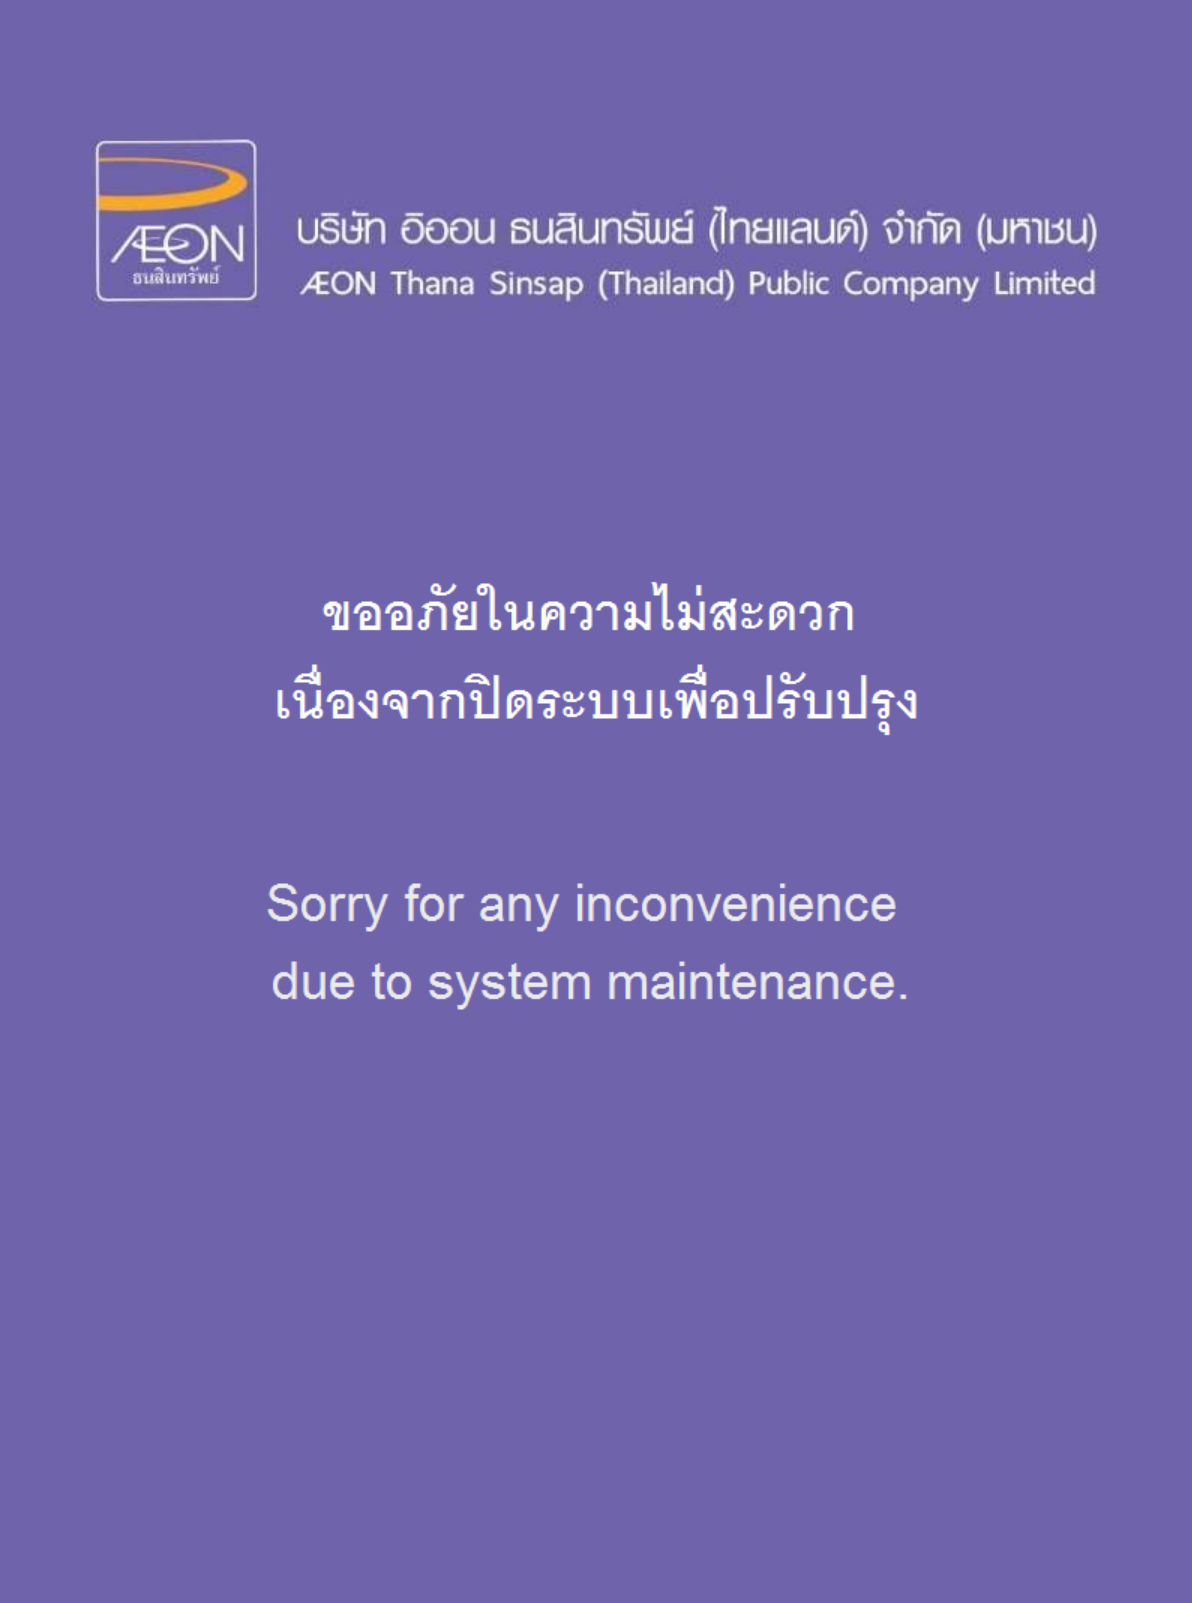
import math
import cairo

surface = cairo.ImageSurface(cairo.FORMAT_RGB24, 1192, 1603)
ctx = cairo.Context(surface)
options = cairo.FontOptions()
options.set_hint_metrics(cairo.HINT_METRICS_OFF)
options.set_hint_style(cairo.HINT_STYLE_NONE)
ctx.set_font_options(options)
ctx.set_miter_limit(4)


def set_color(code):
    ctx.set_source_rgb(*(v / 255 for v in bytes.fromhex(code[-6:])))


def draw_image(path, x, y, w, h):
    ctx.save()
    ctx.set_source_surface(cairo.ImageSurface.create_from_png(path), x, y)
    ctx.rectangle(x, y, w, h)
    ctx.fill()
    ctx.restore()


set_color("#6f63ab")
ctx.paint()
draw_image("assets/img1.png", 89, 133, 1011, 877)
surface.write_to_png("output.png")
